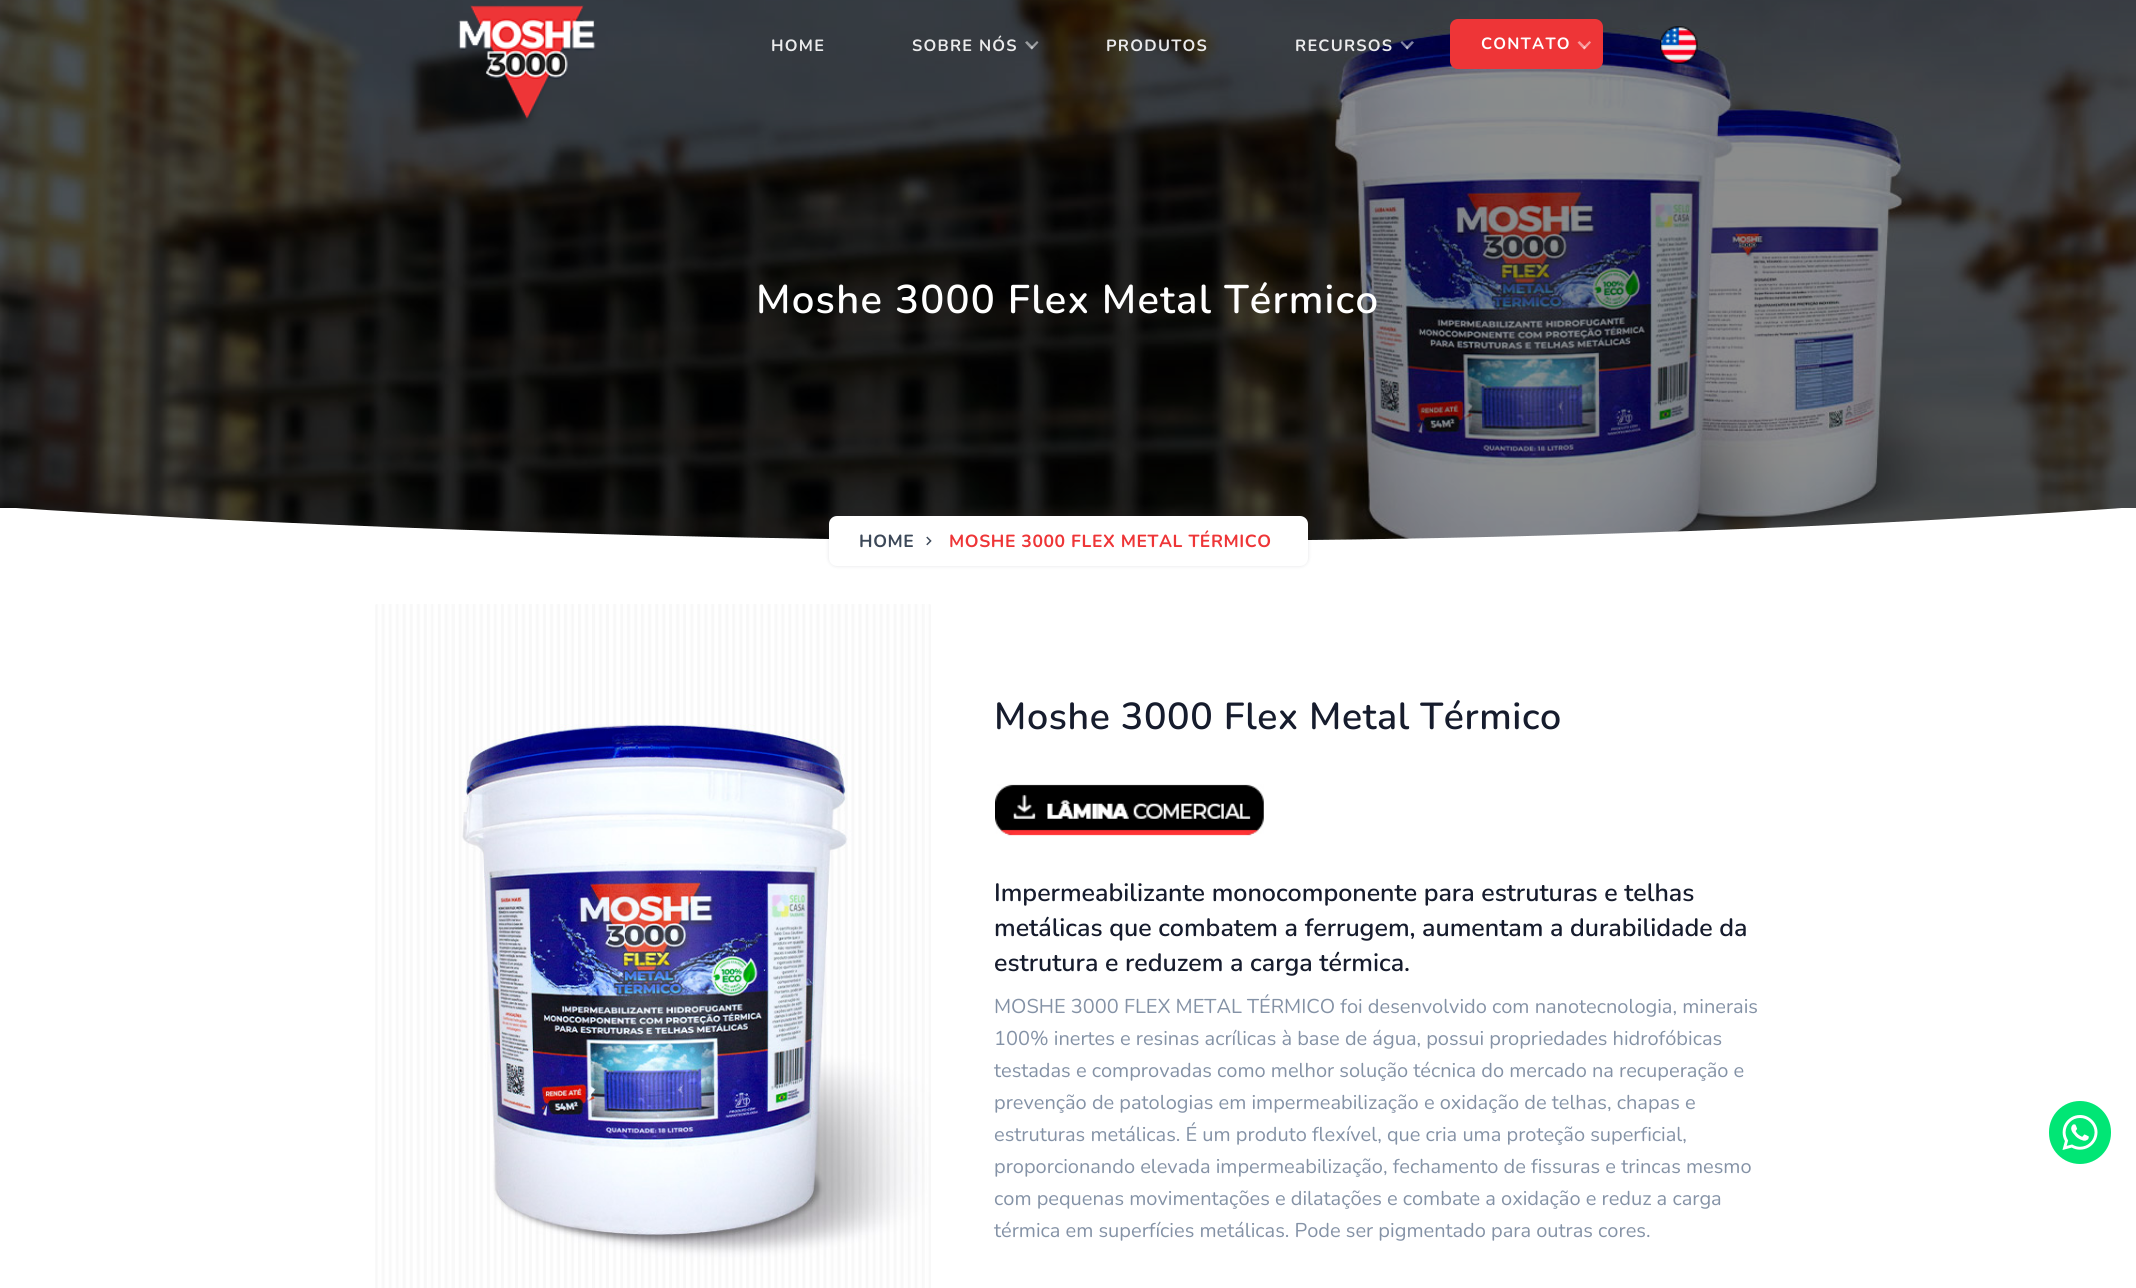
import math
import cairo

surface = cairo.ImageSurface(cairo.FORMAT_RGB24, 2136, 1288)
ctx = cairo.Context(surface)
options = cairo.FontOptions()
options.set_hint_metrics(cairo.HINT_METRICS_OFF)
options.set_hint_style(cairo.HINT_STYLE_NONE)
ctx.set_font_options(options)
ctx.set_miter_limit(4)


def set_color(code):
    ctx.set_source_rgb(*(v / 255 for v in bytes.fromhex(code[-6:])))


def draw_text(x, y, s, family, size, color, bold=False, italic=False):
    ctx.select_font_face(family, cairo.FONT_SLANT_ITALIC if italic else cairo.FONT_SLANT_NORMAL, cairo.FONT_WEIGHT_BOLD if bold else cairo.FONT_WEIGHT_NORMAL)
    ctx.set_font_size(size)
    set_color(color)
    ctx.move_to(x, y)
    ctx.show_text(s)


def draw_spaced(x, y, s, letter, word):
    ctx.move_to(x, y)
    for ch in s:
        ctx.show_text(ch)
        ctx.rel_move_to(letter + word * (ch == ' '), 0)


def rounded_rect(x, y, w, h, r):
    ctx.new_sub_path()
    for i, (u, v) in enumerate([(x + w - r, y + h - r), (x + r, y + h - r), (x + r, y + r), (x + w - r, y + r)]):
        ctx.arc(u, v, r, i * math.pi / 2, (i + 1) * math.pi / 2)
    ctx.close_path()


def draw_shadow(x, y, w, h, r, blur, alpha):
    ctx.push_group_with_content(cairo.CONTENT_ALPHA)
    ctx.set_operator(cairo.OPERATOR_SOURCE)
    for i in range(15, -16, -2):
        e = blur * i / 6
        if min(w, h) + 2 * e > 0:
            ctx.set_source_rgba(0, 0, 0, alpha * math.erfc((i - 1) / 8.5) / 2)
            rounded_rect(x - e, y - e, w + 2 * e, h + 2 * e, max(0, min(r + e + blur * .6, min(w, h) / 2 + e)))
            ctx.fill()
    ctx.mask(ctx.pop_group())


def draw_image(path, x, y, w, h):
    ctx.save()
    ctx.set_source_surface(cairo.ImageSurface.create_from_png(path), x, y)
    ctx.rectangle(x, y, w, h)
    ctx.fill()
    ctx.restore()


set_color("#ffffff")
ctx.paint()
draw_image("assets/img3.png", 0, 0, 2136, 540)
draw_image("assets/img1.png", 458, 5, 138, 114)
ctx.select_font_face("Nunito", cairo.FONT_SLANT_NORMAL, cairo.FONT_WEIGHT_BOLD)
ctx.set_font_size(16.25)
set_color("#ebebec")
draw_spaced(771, 51, "HOME", 1.25, 0)
draw_spaced(912, 51, "SOBRE NÓS", 1.25, 0)
ctx.set_source_rgba(1, 1, 1, 0.5)
ctx.new_path()
ctx.move_to(1037, 41)
ctx.line_to(1038.5, 42.5)
ctx.line_to(1032, 49.5)
ctx.line_to(1030.5, 47.5)
ctx.close_path()
ctx.fill()
ctx.new_path()
ctx.move_to(1027, 41)
ctx.line_to(1033.5, 47.5)
ctx.line_to(1031.5, 49.5)
ctx.line_to(1025, 42.5)
ctx.close_path()
ctx.fill()
set_color("#ebebec")
draw_spaced(1106, 51, "PRODUTOS", 1.25, 0)
draw_spaced(1295, 51, "RECURSOS", 1.25, 0)
ctx.set_source_rgba(1, 1, 1, 0.5)
ctx.new_path()
ctx.move_to(1412, 41)
ctx.line_to(1414, 42.5)
ctx.line_to(1407.5, 49.5)
ctx.line_to(1405.5, 47.5)
ctx.close_path()
ctx.fill()
ctx.new_path()
ctx.move_to(1402, 41)
ctx.line_to(1408.5, 47.5)
ctx.line_to(1407, 49.5)
ctx.line_to(1400.5, 42.5)
ctx.close_path()
ctx.fill()
set_color("#ee3537")
rounded_rect(1450, 19, 153, 50, 8)
ctx.fill()
set_color("#ffffff")
draw_spaced(1481, 49, "CONTATO", 1.25, 0)
set_color("#f79a9b")
ctx.new_path()
ctx.move_to(1589.5, 41)
ctx.line_to(1591, 42.5)
ctx.line_to(1584.5, 49.5)
ctx.line_to(1583, 47.5)
ctx.close_path()
ctx.fill()
ctx.set_source_rgba(1, 1, 1, 0.5)
ctx.new_path()
ctx.move_to(1579.5, 41)
ctx.line_to(1586, 47.5)
ctx.line_to(1584, 49.5)
ctx.line_to(1577.5, 42.5)
ctx.close_path()
ctx.fill()
draw_image("assets/img2.png", 1660, 26, 38, 38)
ctx.select_font_face("Nunito SemiBold")
ctx.set_font_size(40)
set_color("#ffffff")
draw_spaced(756, 313, "Moshe 3000 Flex Metal Térmico", 1.25, 0)
ctx.save()
ctx.rectangle(0, 508, 2136, 36)
ctx.clip()
ctx.new_path()
ctx.move_to(-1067, 578)
ctx.line_to(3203, 578)
ctx.line_to(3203, 507)
ctx.line_to(2136, 507)
ctx.curve_to(1072, 584, 1, 507, 1, 507)
ctx.line_to(-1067, 507)
ctx.close_path()
ctx.fill()
ctx.restore()
set_color("#3c4858")
draw_shadow(829, 516, 479, 50, 8, 2, 0.15)
set_color("#ffffff")
rounded_rect(829, 516, 479, 50, 8)
ctx.fill()
ctx.select_font_face("Nunito", cairo.FONT_SLANT_NORMAL, cairo.FONT_WEIGHT_BOLD)
ctx.set_font_size(17.5)
set_color("#3c4858")
draw_spaced(859, 547, "HOME", 0.6, 0)
draw_image("assets/img4.png", 926, 536, 6, 10)
set_color("#ee3537")
draw_spaced(949, 547, "MOSHE 3000 FLEX METAL TÉRMICO", 0.6, 0)
draw_image("assets/img5.png", 375, 604, 556, 684)
ctx.select_font_face("Nunito SemiBold")
ctx.set_font_size(37.5)
set_color("#161c2d")
draw_spaced(994, 729, "Moshe 3000 Flex Metal Térmico", 0.6, 0)
draw_image("assets/img6.png", 995, 784, 269, 52)
draw_text(994, 901, "Impermeabilizante monocomponente para estruturas e telhas", "Nunito SemiBold", 25, "#161c2d")
draw_text(994, 936, "metálicas que combatem a ferrugem, aumentam a durabilidade da", "Nunito SemiBold", 25, "#161c2d")
draw_text(994, 971, "estrutura e reduzem a carga térmica.", "Nunito SemiBold", 25, "#161c2d")
draw_text(994, 1013, "MOSHE 3000 FLEX METAL TÉRMICO foi desenvolvido com nanotecnologia, minerais", "Nunito", 20, "#8492a6")
draw_text(994, 1045, "100% inertes e resinas acrílicas à base de água, possui propriedades hidrofóbicas", "Nunito", 20, "#8492a6")
draw_text(994, 1077, "testadas e comprovadas como melhor solução técnica do mercado na recuperação e", "Nunito", 20, "#8492a6")
draw_text(994, 1109, "prevenção de patologias em impermeabilização e oxidação de telhas, chapas e", "Nunito", 20, "#8492a6")
draw_text(994, 1141, "estruturas metálicas. É um produto flexível, que cria uma proteção superficial,", "Nunito", 20, "#8492a6")
draw_text(994, 1173, "proporcionando elevada impermeabilização, fechamento de fissuras e trincas mesmo", "Nunito", 20, "#8492a6")
draw_text(994, 1205, "com pequenas movimentações e dilatações e combate a oxidação e reduz a carga", "Nunito", 20, "#8492a6")
draw_text(994, 1237, "térmica em superfícies metálicas. Pode ser pigmentado para outras cores.", "Nunito", 20, "#8492a6")
set_color("#01e675")
rounded_rect(2049, 1101, 62, 63, 31)
ctx.fill()
draw_image("assets/img7.png", 2062, 1115, 36, 35)
surface.write_to_png("output.png")
